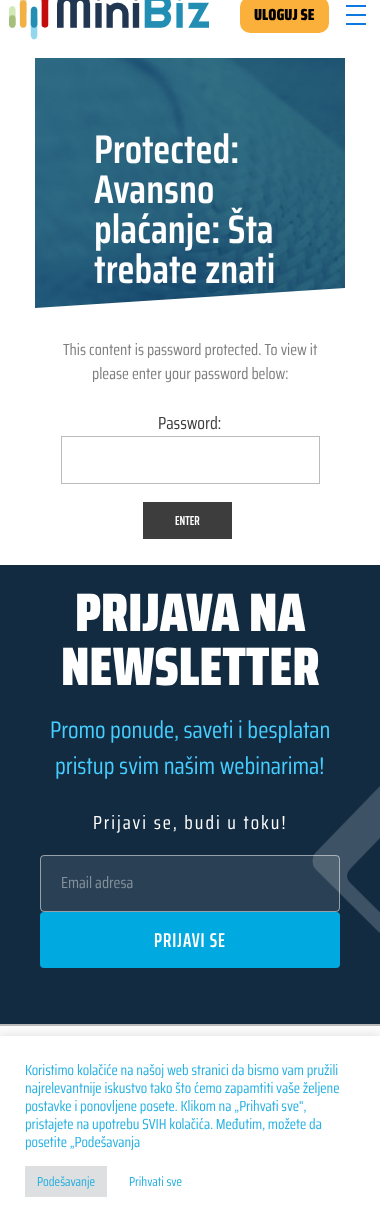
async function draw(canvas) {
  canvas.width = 380;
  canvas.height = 1227;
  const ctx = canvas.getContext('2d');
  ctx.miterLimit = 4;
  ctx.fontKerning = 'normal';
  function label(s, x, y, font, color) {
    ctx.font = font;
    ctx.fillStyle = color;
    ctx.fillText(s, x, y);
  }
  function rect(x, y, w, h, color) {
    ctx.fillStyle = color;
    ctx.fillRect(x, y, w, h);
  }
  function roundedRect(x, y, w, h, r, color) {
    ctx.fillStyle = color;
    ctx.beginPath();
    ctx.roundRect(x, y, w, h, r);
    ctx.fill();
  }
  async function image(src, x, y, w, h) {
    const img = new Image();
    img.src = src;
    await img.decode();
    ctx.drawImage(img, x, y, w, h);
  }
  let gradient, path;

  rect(0, 0, 380, 1227, '#fff');
  await image('assets/img1.png', 9, 0, 200, 40);
  roundedRect(240, -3, 89, 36, 10, '#fbb03b');
  label('ULOGUJ SE', 254, 20, '900 16px Saira Condensed', '#000');
  rect(346, 5, 20, 2, '#0e78e1');
  rect(346, 14, 20, 2, '#0e78e1');
  rect(346, 23, 20, 2, '#0e78e1');
  await image('assets/img2.png', 35, 58, 310, 250);
  label('Protected:', 94, 163, '600 40px Saira Condensed', '#fff');
  label('Avansno', 94, 203, '600 40px Saira Condensed', '#fff');
  label('plaćanje: Šta', 94, 243, '600 40px Saira Condensed', '#fff');
  label('trebate znati', 94, 283, '600 40px Saira Condensed', '#fff');
  ctx.save();
  ctx.beginPath();
  ctx.rect(35, 288, 310, 21);
  ctx.clip();
  path = new Path2D('M34 308V309H346V288Z');
  ctx.fill(path);
  ctx.restore();
  label('This content is password protected. To view it', 63, 355, '16px Saira Condensed', '#7d7d7d');
  label('please enter your password below:', 92, 379, '16px Saira Condensed', '#7d7d7d');
  label('Password:', 158, 429, '17.5px Saira Condensed', '#3d3d3d');
  ctx.strokeStyle = '#bbb';
  ctx.strokeRect(61.5, 436.5, 258, 47);
  rect(143, 502, 89, 37, '#3d3d3d');
  label('ENTER', 175, 525, '600 13px Saira ExtraCondensed', '#fff');
  rect(0, 565, 380, 459, '#122b41');
  await image('assets/img3.png', 312, 786, 68, 148);
  label('PRIJAVA NA', 75, 631, '900 54px Saira Condensed', '#fff');
  label('NEWSLETTER', 61, 685, '900 54px Saira Condensed', '#fff');
  label('Promo ponude, saveti i besplatan', 50, 738, '24px Saira Condensed', '#45ceff');
  label('pristup svim našim webinarima!', 55, 774, '24px Saira Condensed', '#45ceff');
  ctx.letterSpacing = '2px';
  label('Prijavi se, budi u toku!', 93, 829, '19px Saira Condensed', '#fff');
  roundedRect(40, 855, 300, 57, 4, '#ffffff1a');
  ctx.beginPath();
  ctx.roundRect(40.5, 855.5, 299, 56, 3.5);
  ctx.strokeStyle = '#ffffff80';
  ctx.stroke();
  ctx.letterSpacing = '0px';
  label('Email adresa', 61, 888, '16px Saira Condensed', '#84919c');
  roundedRect(40, 912, 300, 56, 4, '#00a9e0');
  ctx.letterSpacing = '1px';
  label('PRIJAVI SE', 154, 947, '600 20px Saira ExtraCondensed', '#fff');
  gradient = ctx.createLinearGradient(190, 1026, 190, 1087);
  gradient.addColorStop(0, '#fcfcfc');
  gradient.addColorStop(1, '#f4f4f4');
  ctx.fillStyle = gradient;
  ctx.fillRect(0, 1026, 380, 10);
  rect(0, 1024, 380, 2, '#bababa');
  ctx.fillStyle = '#acabab4d';
  ctx.filter = 'blur(5px)';
  ctx.beginPath();
  ctx.rect(0, 1035, 380, 191);
  ctx.fill();
  ctx.filter = 'none';
  rect(0, 1036, 380, 191, '#fff');
  ctx.letterSpacing = '0px';
  label('Koristimo kolačiće na našoj web stranici da bismo vam pružili', 25, 1075, '14.7px Saira Condensed', '#24b0e2');
  label('najrelevantnije iskustvo tako što ćemo zapamtiti vaše željene', 25, 1093, '14.7px Saira Condensed', '#24b0e2');
  label('postavke i ponovljene posete. Klikom na „Prihvati sve“,', 25, 1111, '14.7px Saira Condensed', '#24b0e2');
  label('pristajete na upotrebu SVIH kolačića. Međutim, možete da', 25, 1129, '14.7px Saira Condensed', '#24b0e2');
  label('posetite „Podešavanja', 25, 1147, '14.7px Saira Condensed', '#24b0e2');
  rect(25, 1166, 82, 31, '#dedfe0');
  label('Podešavanje', 37, 1186, '13px Saira Condensed', '#24b0e2');
  label('Prihvati sve', 129, 1186, '13px Saira Condensed', '#24b0e2');
}

draw(document.querySelector('canvas'));
